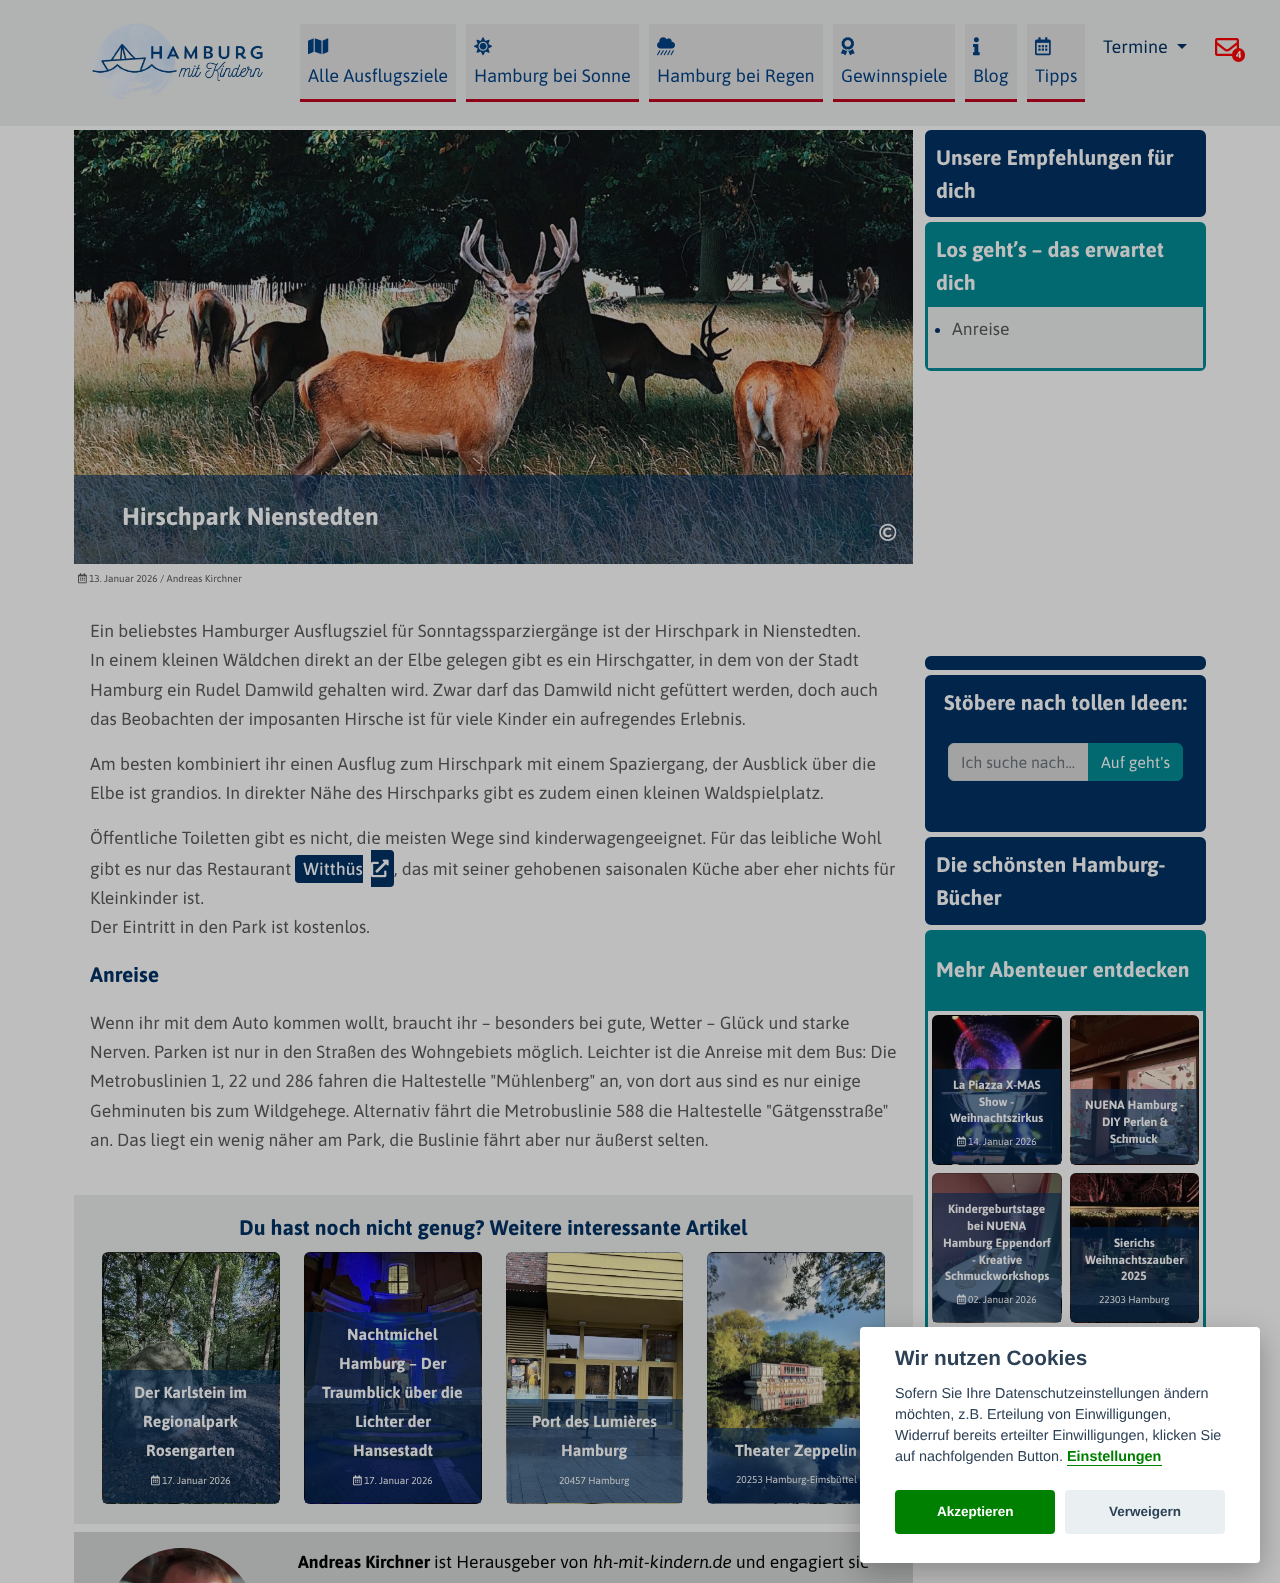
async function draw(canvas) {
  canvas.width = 1280;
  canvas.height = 1583;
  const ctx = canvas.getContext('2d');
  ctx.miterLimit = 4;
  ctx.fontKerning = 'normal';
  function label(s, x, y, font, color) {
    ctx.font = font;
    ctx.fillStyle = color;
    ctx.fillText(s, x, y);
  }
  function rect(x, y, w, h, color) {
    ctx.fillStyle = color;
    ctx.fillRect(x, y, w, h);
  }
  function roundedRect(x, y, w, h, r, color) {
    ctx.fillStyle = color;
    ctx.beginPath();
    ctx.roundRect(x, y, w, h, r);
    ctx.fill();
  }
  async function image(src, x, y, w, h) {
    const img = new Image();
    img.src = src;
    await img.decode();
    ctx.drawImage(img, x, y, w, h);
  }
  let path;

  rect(0, 0, 1280, 1583, '#bebebf');
  rect(0, 0, 1280, 126, '#b1b2b2');
  await image('assets/img1.png', 92, 23, 171, 76);
  label('Termine', 1103, 53, '18px Asap', '#01254b');
  path = new Path2D('M1177 44H1187L1182 49Z');
  ctx.fill(path);
  await image('assets/img2.png', 1215, 38, 24, 18);
  roundedRect(1232, 48, 13, 14, 6.5, '#be0202');
  label('4', 1236, 58, 'bold 10px Asap', '#bebebf');
  rect(300, 24, 156, 75, '#abaaab');
  rect(300, 99, 156, 3, '#900217');
  await image('assets/img3.png', 308, 38, 21, 17);
  label('Alle Ausflugsziele', 308, 82, '18px Asap', '#023264');
  rect(466, 24, 173, 75, '#abaaab');
  rect(466, 99, 173, 3, '#900217');
  await image('assets/img4.png', 474, 37, 18, 19);
  label('Hamburg bei Sonne', 474, 82, '18px Asap', '#023264');
  rect(649, 24, 174, 75, '#abaaab');
  rect(649, 99, 174, 3, '#900217');
  await image('assets/img5.png', 657, 37, 18, 19);
  label('Hamburg bei Regen', 657, 82, '18px Asap', '#023264');
  rect(833, 24, 122, 75, '#abaaab');
  rect(833, 99, 122, 3, '#900217');
  await image('assets/img6.png', 841, 37, 14, 19);
  label('Gewinnspiele', 841, 82, '18px Asap', '#023264');
  rect(965, 24, 52, 75, '#abaaab');
  rect(965, 99, 52, 3, '#900217');
  await image('assets/img7.png', 973, 37, 7, 19);
  label('Blog', 973, 82, '18px Asap', '#023264');
  rect(1027, 24, 58, 75, '#abaaab');
  rect(1027, 99, 58, 3, '#900217');
  await image('assets/img8.png', 1035, 37, 16, 19);
  label('Tipps', 1035, 82, '18px Asap', '#023264');
  await image('assets/img9.png', 74, 130, 839, 434);
  rect(74, 475, 839, 89, '#01254b99');
  label('Hirschpark Nienstedten', 122, 525, 'bold 24.6px Asap', '#bebebf');
  await image('assets/img10.png', 879, 523, 18, 18);
  await image('assets/img11.png', 78, 573, 9, 11);
  label('13. Januar 2026 / Andreas Kirchner', 89, 582, '10px Asap', '#444545');
  label('Ein beliebstes Hamburger Ausflugsziel für Sonntagssparziergänge ist der Hirschpark in Nienstedten.', 90, 637, '17.6px Asap', '#444545');
  label('In einem kleinen Wäldchen direkt an der Elbe gelegen gibt es ein Hirschgatter, in dem von der Stadt', 90, 666, '17.6px Asap', '#444545');
  label('Hamburg ein Rudel Damwild gehalten wird. Zwar darf das Damwild nicht gefüttert werden, doch auch', 90, 696, '17.6px Asap', '#444545');
  label('das Beobachten der imposanten Hirsche ist für viele Kinder ein aufregendes Erlebnis.', 90, 725, '17.6px Asap', '#444545');
  label('Am besten kombiniert ihr einen Ausflug zum Hirschpark mit einem Spaziergang, der Ausblick über die', 90, 770, '17.6px Asap', '#444545');
  label('Elbe ist grandios. In direkter Nähe des Hirschparks gibt es zudem einen kleinen Waldspielplatz.', 90, 799, '17.6px Asap', '#444545');
  label('Öffentliche Toiletten gibt es nicht, die meisten Wege sind kinderwagengeeignet. Für das leibliche Wohl', 90, 844, '17.6px Asap', '#444545');
  label('gibt es nur das Restaurant', 90, 875, '17.6px Asap', '#444545');
  ctx.fillStyle = '#01254b';
  ctx.beginPath();
  ctx.roundRect(295, 855, 68, 28, [4, 0, 0, 4]);
  ctx.fill();
  ctx.beginPath();
  ctx.roundRect(371, 850, 23, 37, [0, 4, 4, 0]);
  ctx.fill();
  label('Witthüs', 303, 875, '500 17.6px Asap', '#bebebf');
  await image('assets/img12.png', 371, 859, 18, 19);
  label(', das mit seiner gehobenen saisonalen Küche aber eher nichts für', 394, 875, '17.6px Asap', '#444545');
  label('Kleinkinder ist.', 90, 904, '17.6px Asap', '#444545');
  label('Der Eintritt in den Park ist kostenlos.', 90, 933, '17.6px Asap', '#444545');
  label('Anreise', 90, 982, 'bold 21.1px Asap', '#01254b');
  label('Wenn ihr mit dem Auto kommen wollt, braucht ihr – besonders bei gute, Wetter – Glück und starke', 90, 1029, '17.6px Asap', '#444545');
  label('Nerven. Parken ist nur in den Straßen des Wohngebiets möglich. Leichter ist die Anreise mit dem Bus: Die', 90, 1058, '17.6px Asap', '#444545');
  label('Metrobuslinien 1, 22 und 286 fahren die Haltestelle "Mühlenberg" an, von dort aus sind es nur einige', 90, 1087, '17.6px Asap', '#444545');
  label('Gehminuten bis zum Wildgehege. Alternativ fährt die Metrobuslinie 588 die Haltestelle "Gätgensstraße"', 90, 1117, '17.6px Asap', '#444545');
  label('an. Das liegt ein wenig näher am Park, die Buslinie fährt aber nur äußerst selten.', 90, 1146, '17.6px Asap', '#444545');
  rect(74, 1195, 839, 329, '#b0b1b1');
  label('Du hast noch nicht genug? Weitere interessante Artikel', 239, 1235, 'bold 21.1px Asap', '#01254b');
  await image('assets/img13.png', 102, 1252, 178, 252);
  ctx.beginPath();
  ctx.roundRect(102.5, 1252.5, 177, 251, 5.5);
  ctx.strokeStyle = '#0102022e';
  ctx.stroke();
  rect(103, 1370, 176, 133, '#01254b99');
  label('Der Karlstein im', 134, 1398, 'bold 16px Asap', '#bebebf');
  label('Regionalpark', 143, 1427, 'bold 16px Asap', '#bebebf');
  label('Rosengarten', 146, 1456, 'bold 16px Asap', '#bebebf');
  await image('assets/img14.png', 151, 1475, 9, 11);
  label('17. Januar 2026', 162, 1484, '10px Asap', '#bebebf');
  await image('assets/img15.png', 304, 1252, 178, 252);
  ctx.beginPath();
  ctx.roundRect(304.5, 1252.5, 177, 251, 5.5);
  ctx.stroke();
  rect(305, 1312, 176, 191, '#01254b99');
  label('Nachtmichel', 347, 1340, 'bold 16px Asap', '#bebebf');
  label('Hamburg – Der', 339, 1369, 'bold 16px Asap', '#bebebf');
  label('Traumblick über die', 322, 1398, 'bold 16px Asap', '#bebebf');
  label('Lichter der', 355, 1427, 'bold 16px Asap', '#bebebf');
  label('Hansestadt', 353, 1456, 'bold 16px Asap', '#bebebf');
  await image('assets/img16.png', 353, 1475, 9, 11);
  label('17. Januar 2026', 364, 1484, '10px Asap', '#bebebf');
  await image('assets/img17.png', 506, 1252, 177, 252);
  ctx.beginPath();
  ctx.roundRect(506.5, 1252.5, 176, 251, 5.5);
  ctx.stroke();
  rect(507, 1399, 175, 104, '#01254b99');
  label('Port des Lumières', 532, 1427, 'bold 16px Asap', '#bebebf');
  label('Hamburg', 561, 1456, 'bold 16px Asap', '#bebebf');
  label('20457 Hamburg', 559, 1484, '10px Asap', '#bebebf');
  await image('assets/img18.png', 707, 1252, 178, 252);
  ctx.beginPath();
  ctx.roundRect(707.5, 1252.5, 177, 251, 5.5);
  ctx.stroke();
  rect(708, 1428, 152, 75, '#01254b99');
  label('Theater Zeppelin', 735, 1456, 'bold 16px Asap', '#bebebf');
  label('20253 Hamburg-Eimsbüttel', 736, 1483, '10px Asap', '#bebebf');
  rect(74, 1532, 839, 51, '#a0a1a1');
  await image('assets/img19.png', 118, 1548, 128, 35);
  label('Andreas Kirchner', 298, 1568, 'bold 17.6px Asap', '#010202');
  label('ist Herausgeber von', 434, 1568, '17.6px Asap', '#010202');
  label('hh-mit-kindern.de', 593, 1568, 'italic 17.6px Asap', '#010202');
  label('und engagiert sic', 736, 1568, '17.6px Asap', '#010202');
  ctx.beginPath();
  ctx.roundRect(926.5, 131.5, 278, 84, 4.5);
  ctx.strokeStyle = '#01254b';
  ctx.lineWidth = 3;
  ctx.stroke();
  rect(928, 133, 275, 81, '#01254b');
  label('Unsere Empfehlungen für', 936, 165, 'bold 21.1px Asap', '#bebebf');
  label('dich', 936, 198, 'bold 21.1px Asap', '#bebebf');
  ctx.beginPath();
  ctx.roundRect(926.5, 223.5, 278, 146, 4.5);
  ctx.strokeStyle = '#01696f';
  ctx.stroke();
  rect(928, 225, 275, 82, '#01696f');
  label('Los geht’s – das erwartet', 936, 257, 'bold 21.1px Asap', '#bebebf');
  label('dich', 936, 290, 'bold 21.1px Asap', '#bebebf');
  rect(928, 307, 275, 61, '#b1b2b2');
  ctx.fillStyle = '#01254b';
  ctx.beginPath();
  ctx.arc(937.5, 330.5, 2.5, 0, 2 * Math.PI);
  ctx.fill();
  label('Anreise', 952, 335, '17.6px Asap', '#444545');
  ctx.fillStyle = '#01254b';
  ctx.beginPath();
  ctx.roundRect(926.5, 657.5, 278, 11, 4.5);
  ctx.fill();
  ctx.strokeStyle = '#01254b';
  ctx.stroke();
  ctx.beginPath();
  ctx.roundRect(926.5, 676.5, 278, 154, 4.5);
  ctx.stroke();
  rect(928, 678, 275, 151, '#01254b');
  label('Stöbere nach tollen Ideen:', 944, 710, 'bold 21.1px Asap', '#bebebf');
  ctx.fillStyle = '#a3a3a3';
  ctx.beginPath();
  ctx.roundRect(948.5, 743.5, 140, 37, [5.5, 0, 0, 5.5]);
  ctx.fill();
  ctx.strokeStyle = '#999ea3';
  ctx.lineWidth = 1;
  ctx.stroke();
  label('Ich suche nach...', 961, 768, '16px Asap', '#51585f');
  ctx.fillStyle = '#01696f';
  ctx.beginPath();
  ctx.roundRect(1088.5, 743.5, 94, 37, [0, 5.5, 5.5, 0]);
  ctx.fill();
  ctx.strokeStyle = '#01696f';
  ctx.stroke();
  label('Auf geht\'s', 1101, 768, '16px Asap', '#bebebf');
  ctx.beginPath();
  ctx.roundRect(926.5, 838.5, 278, 85, 4.5);
  ctx.strokeStyle = '#01254b';
  ctx.lineWidth = 3;
  ctx.stroke();
  rect(928, 840, 275, 82, '#01254b');
  label('Die schönsten Hamburg-', 936, 872, 'bold 21.1px Asap', '#bebebf');
  label('Bücher', 936, 905, 'bold 21.1px Asap', '#bebebf');
  ctx.beginPath();
  ctx.roundRect(926.5, 931.5, 278, 555, 4.5);
  ctx.strokeStyle = '#01696f';
  ctx.stroke();
  rect(928, 933, 275, 78, '#01696f');
  label('Mehr Abenteuer entdecken', 936, 977, 'bold 21.1px Asap', '#bebebf');
  await image('assets/img20.png', 932, 1015, 130, 150);
  ctx.beginPath();
  ctx.roundRect(932.5, 1015.5, 129, 149, 5.5);
  ctx.strokeStyle = '#0102022e';
  ctx.lineWidth = 1;
  ctx.stroke();
  rect(933, 1069, 128, 95, '#01254b99');
  label('La Piazza X-MAS', 953, 1089, 'bold 12px Asap', '#bebebf');
  label('Show -', 979, 1106, 'bold 12px Asap', '#bebebf');
  label('Weihnachtszirkus', 950, 1122, 'bold 12px Asap', '#bebebf');
  await image('assets/img21.png', 957, 1136, 9, 11);
  label('14. Januar 2026', 968, 1145, '10px Asap', '#bebebf');
  await image('assets/img22.png', 1070, 1015, 129, 150);
  ctx.beginPath();
  ctx.roundRect(1070.5, 1015.5, 128, 149, 5.5);
  ctx.stroke();
  rect(1071, 1089, 127, 75, '#01254b99');
  label('NUENA Hamburg -', 1085, 1109, 'bold 12px Asap', '#bebebf');
  label('DIY Perlen &', 1102, 1126, 'bold 12px Asap', '#bebebf');
  label('Schmuck', 1110, 1143, 'bold 12px Asap', '#bebebf');
  await image('assets/img23.png', 932, 1173, 130, 150);
  ctx.beginPath();
  ctx.roundRect(932.5, 1173.5, 129, 149, 5.5);
  ctx.stroke();
  rect(933, 1193, 128, 129, '#01254b99');
  label('Kindergeburtstage', 948, 1213, 'bold 12px Asap', '#bebebf');
  label('bei NUENA', 967, 1230, 'bold 12px Asap', '#bebebf');
  label('Hamburg Eppendorf', 943, 1247, 'bold 12px Asap', '#bebebf');
  label('- Kreative', 972, 1264, 'bold 12px Asap', '#bebebf');
  label('Schmuckworkshops', 945, 1280, 'bold 12px Asap', '#bebebf');
  await image('assets/img24.png', 957, 1294, 9, 11);
  label('02. Januar 2026', 968, 1303, '10px Asap', '#bebebf');
  await image('assets/img25.png', 1070, 1173, 129, 150);
  ctx.beginPath();
  ctx.roundRect(1070.5, 1173.5, 128, 149, 5.5);
  ctx.stroke();
  rect(1071, 1227, 127, 95, '#01254b99');
  label('Sierichs', 1114, 1247, 'bold 12px Asap', '#bebebf');
  label('Weihnachtszauber', 1085, 1264, 'bold 12px Asap', '#bebebf');
  label('2025', 1121, 1280, 'bold 12px Asap', '#bebebf');
  label('22303 Hamburg', 1099, 1303, '10px Asap', '#bebebf');
  ctx.fillStyle = '#02020347';
  ctx.filter = 'blur(15px)';
  ctx.beginPath();
  ctx.roundRect(860, 1337, 400, 236, 4);
  ctx.fill();
  ctx.filter = 'none';
  roundedRect(860, 1327, 400, 236, 4, '#fff');
  label('Wir nutzen Cookies', 895, 1365, 'bold 20.75px Liberation Sans', '#2d4156');
  label('Sofern Sie Ihre Datenschutzeinstellungen ändern', 895, 1398, '14.4px Liberation Sans', '#2d4156');
  label('möchten, z.B. Erteilung von Einwilligungen,', 895, 1419, '14.4px Liberation Sans', '#2d4156');
  label('Widerruf bereits erteilter Einwilligungen, klicken Sie', 895, 1440, '14.4px Liberation Sans', '#2d4156');
  label('auf nachfolgenden Button.', 895, 1461, '14.4px Liberation Sans', '#2d4156');
  label('Einstellungen', 1067, 1461, 'bold 14.4px Liberation Sans', '#008000');
  rect(1067, 1465, 95, 1, '#008000');
  roundedRect(895, 1490, 160, 44, 4, '#008000');
  label('Akzeptieren', 937, 1516, 'bold 13.5px Liberation Sans', '#fff');
  roundedRect(1065, 1490, 160, 44, 4, '#eaeff2');
  label('Verweigern', 1109, 1516, 'bold 13.5px Liberation Sans', '#2d4156');
}

draw(document.querySelector('canvas'));
